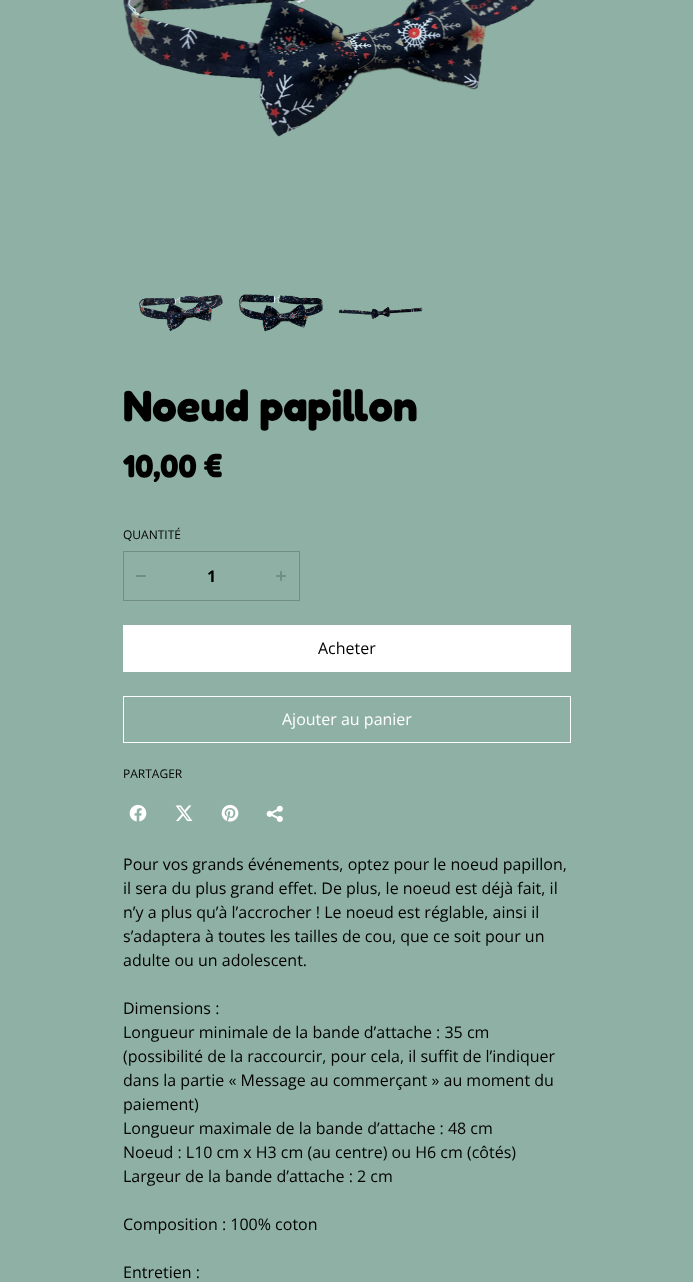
async function draw(canvas) {
  canvas.width = 693;
  canvas.height = 1282;
  const ctx = canvas.getContext('2d');
  ctx.miterLimit = 4;
  ctx.fontKerning = 'normal';
  function label(s, x, y, font, color) {
    ctx.font = font;
    ctx.fillStyle = color;
    ctx.fillText(s, x, y);
  }
  function rect(x, y, w, h, color) {
    ctx.fillStyle = color;
    ctx.fillRect(x, y, w, h);
  }
  async function image(src, x, y, w, h) {
    const img = new Image();
    img.src = src;
    await img.decode();
    ctx.drawImage(img, x, y, w, h);
  }
  let path;

  rect(0, 0, 693, 1282, '#8fb1a5');
  await image('assets/img1.png', 123, 0, 412, 137);
  await image('assets/img2.png', 139, 294, 84, 38);
  await image('assets/img3.png', 239, 294, 84, 38);
  await image('assets/img4.png', 339, 307, 84, 12);
  label('Noeud papillon', 123, 421, 'bold 43.75px Fredoka', '#000');
  label('10,00 €', 123, 477, 'bold 32px Fredoka', '#000');
  label('QUANTITÉ', 123, 539, '12px Open Sans', '#000');
  ctx.fillStyle = '#728e84';
  path = new Path2D('M123 551H159V552H124ZM159 601H123L124 600H159Z');
  ctx.fill(path);
  ctx.fillStyle = '#00000033';
  path = new Path2D('M123 601V551L124 552V600Z');
  ctx.fill(path);
  await image('assets/img5.png', 136, 575, 10, 2);
  rect(159, 551, 105, 1, '#728e84');
  rect(159, 600, 105, 1, '#728e84');
  label('1', 207, 582, 'bold 16px Open Sans', '#000');
  ctx.fillStyle = '#728e84';
  path = new Path2D('M264 551H300L299 552H264Z');
  ctx.fill(path);
  ctx.fillStyle = '#00000033';
  path = new Path2D('M300 551V601L299 600V552Z');
  ctx.fill(path);
  path = new Path2D('M300 601H264V600H299Z');
  ctx.fill(path);
  await image('assets/img6.png', 276, 571, 10, 10);
  rect(123, 625, 448, 47, '#fff');
  label('Acheter', 318, 654, '16px Open Sans', '#000');
  ctx.strokeStyle = '#fff';
  ctx.strokeRect(123.5, 696.5, 447, 46);
  label('Ajouter au panier', 282, 725, '16px Open Sans', '#fff');
  label('PARTAGER', 123, 778, '12px Open Sans', '#000');
  await image('assets/img7.png', 129, 804, 18, 18);
  await image('assets/img8.png', 175, 805, 18, 17);
  await image('assets/img9.png', 221, 804, 18, 18);
  await image('assets/img10.png', 266, 805, 17, 17);
  label('Pour vos grands événements, optez pour le noeud papillon,', 123, 870, '16px Open Sans', '#000');
  label('il sera du plus grand effet. De plus, le noeud est déjà fait, il', 123, 894, '16px Open Sans', '#000');
  label('n’y a plus qu’à l’accrocher ! Le noeud est réglable, ainsi il', 123, 918, '16px Open Sans', '#000');
  label('s’adaptera à toutes les tailles de cou, que ce soit pour un', 123, 942, '16px Open Sans', '#000');
  label('adulte ou un adolescent.', 123, 966, '16px Open Sans', '#000');
  label('Dimensions :', 123, 1014, '16px Open Sans', '#000');
  label('Longueur minimale de la bande d’attache : 35 cm', 123, 1038, '16px Open Sans', '#000');
  label('(possibilité de la raccourcir, pour cela, il suffit de l’indiquer', 123, 1062, '16px Open Sans', '#000');
  label('dans la partie « Message au commerçant » au moment du', 123, 1086, '16px Open Sans', '#000');
  label('paiement)', 123, 1110, '16px Open Sans', '#000');
  label('Longueur maximale de la bande d’attache : 48 cm', 123, 1134, '16px Open Sans', '#000');
  label('Noeud : L10 cm x H3 cm (au centre) ou H6 cm (côtés)', 123, 1158, '16px Open Sans', '#000');
  label('Largeur de la bande d’attache : 2 cm', 123, 1182, '16px Open Sans', '#000');
  label('Composition : 100% coton', 123, 1230, '16px Open Sans', '#000');
  label('Entretien :', 123, 1278, '16px Open Sans', '#000');
}

draw(document.querySelector('canvas'));
